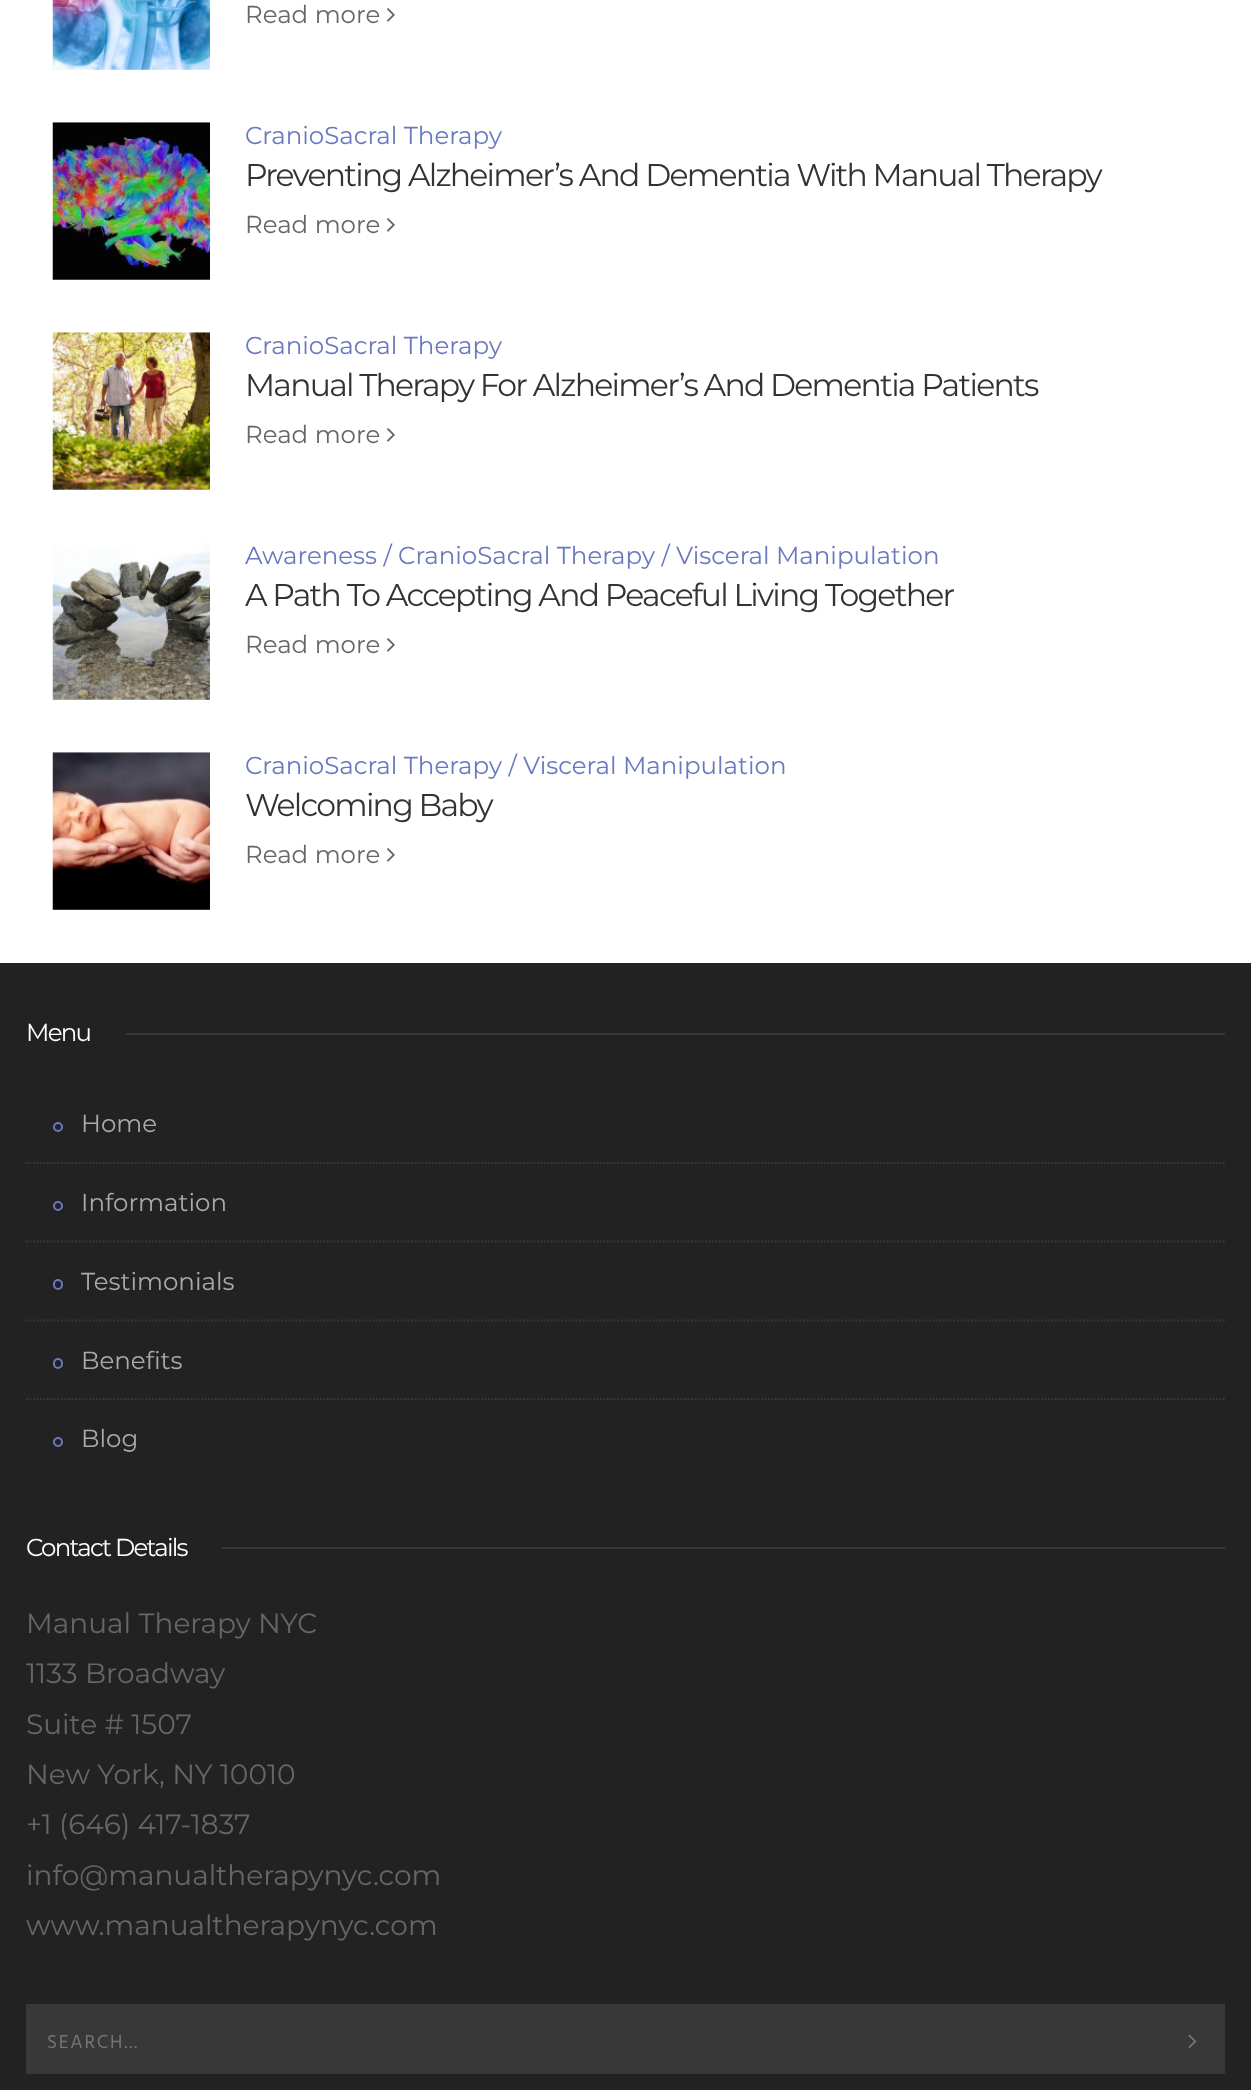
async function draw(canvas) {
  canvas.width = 1251;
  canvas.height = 2090;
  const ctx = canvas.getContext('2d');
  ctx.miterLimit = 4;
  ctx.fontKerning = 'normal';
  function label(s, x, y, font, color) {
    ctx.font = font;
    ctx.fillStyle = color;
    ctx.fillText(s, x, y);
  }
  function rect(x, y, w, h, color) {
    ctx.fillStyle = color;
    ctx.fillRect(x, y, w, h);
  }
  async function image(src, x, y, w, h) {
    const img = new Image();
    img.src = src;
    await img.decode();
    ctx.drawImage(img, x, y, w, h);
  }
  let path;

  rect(0, 0, 1251, 2090, '#fff');
  await image('assets/img1.png', 52, 0, 158, 70);
  label('Read more', 245, 23, '24.5px Montserrat', '#666');
  await image('assets/img2.png', 387, 8, 8, 14);
  await image('assets/img3.png', 52, 122, 158, 158);
  label('CranioSacral Therapy', 245, 144, '24.5px Montserrat', '#6978bf');
  ctx.letterSpacing = '-1.75px';
  label('Preventing Alzheimer’s And Dementia With Manual Therapy', 245, 186, '31.5px Montserrat', '#333');
  ctx.letterSpacing = '0px';
  label('Read more', 245, 233, '24.5px Montserrat', '#666');
  await image('assets/img4.png', 387, 218, 8, 14);
  await image('assets/img5.png', 52, 332, 158, 158);
  label('CranioSacral Therapy', 245, 354, '24.5px Montserrat', '#6978bf');
  ctx.letterSpacing = '-1.75px';
  label('Manual Therapy For Alzheimer’s And Dementia Patients', 245, 396, '31.5px Montserrat', '#333');
  ctx.letterSpacing = '0px';
  label('Read more', 245, 443, '24.5px Montserrat', '#666');
  await image('assets/img4.png', 387, 428, 8, 14);
  await image('assets/img6.png', 52, 543, 158, 157);
  label('Awareness / CranioSacral Therapy / Visceral Manipulation', 245, 564, '24.5px Montserrat', '#6978bf');
  ctx.letterSpacing = '-1.75px';
  label('A Path To Accepting And Peaceful Living Together', 245, 606, '31.5px Montserrat', '#333');
  ctx.letterSpacing = '0px';
  label('Read more', 245, 653, '24.5px Montserrat', '#666');
  await image('assets/img4.png', 387, 638, 8, 14);
  rect(53, 909, 157, 1, '#6978bf');
  await image('assets/img7.png', 52, 752, 158, 158);
  label('CranioSacral Therapy / Visceral Manipulation', 245, 774, '24.5px Montserrat', '#6978bf');
  ctx.letterSpacing = '-1.75px';
  label('Welcoming Baby', 245, 816, '31.5px Montserrat', '#333');
  ctx.letterSpacing = '0px';
  label('Read more', 245, 863, '24.5px Montserrat', '#666');
  await image('assets/img4.png', 387, 848, 8, 14);
  rect(0, 963, 1251, 1127, '#222');
  ctx.letterSpacing = '-1.75px';
  label('Menu', 26, 1041, '24.5px Montserrat', '#fff');
  rect(126, 1033, 1099, 2, '#383838');
  path = new Path2D('M26 1163H1225');
  ctx.strokeStyle = '#383838';
  ctx.lineWidth = 1.8;
  ctx.setLineDash([1.75, 1.75]);
  ctx.stroke(path);
  ctx.beginPath();
  ctx.arc(58, 1127, 4, 0, 2 * Math.PI);
  ctx.strokeStyle = '#6978bf';
  ctx.lineWidth = 2;
  ctx.setLineDash([]);
  ctx.stroke();
  ctx.letterSpacing = '0px';
  label('Home', 81, 1132, '24.5px Montserrat', '#aaa');
  path = new Path2D('M26 1241.5H1225');
  ctx.strokeStyle = '#383838';
  ctx.lineWidth = 1.8;
  ctx.setLineDash([1.75, 1.75]);
  ctx.stroke(path);
  ctx.beginPath();
  ctx.arc(58, 1206, 4, 0, 2 * Math.PI);
  ctx.strokeStyle = '#6978bf';
  ctx.lineWidth = 2;
  ctx.setLineDash([]);
  ctx.stroke();
  label('Information', 81, 1211, '24.5px Montserrat', '#aaa');
  path = new Path2D('M26 1320.5H1225');
  ctx.strokeStyle = '#383838';
  ctx.lineWidth = 1.8;
  ctx.setLineDash([1.75, 1.75]);
  ctx.stroke(path);
  ctx.beginPath();
  ctx.roundRect(54, 1280, 8, 9, 4);
  ctx.strokeStyle = '#6978bf';
  ctx.lineWidth = 2;
  ctx.setLineDash([]);
  ctx.stroke();
  label('Testimonials', 81, 1290, '24.5px Montserrat', '#aaa');
  path = new Path2D('M26 1399H1225');
  ctx.strokeStyle = '#383838';
  ctx.lineWidth = 1.8;
  ctx.setLineDash([1.75, 1.75]);
  ctx.stroke(path);
  ctx.beginPath();
  ctx.roundRect(54, 1359, 8, 9, 4);
  ctx.strokeStyle = '#6978bf';
  ctx.lineWidth = 2;
  ctx.setLineDash([]);
  ctx.stroke();
  label('Benefits', 81, 1369, '24.5px Montserrat', '#aaa');
  ctx.beginPath();
  ctx.arc(58, 1442, 4, 0, 2 * Math.PI);
  ctx.stroke();
  label('Blog', 81, 1447, '24.5px Montserrat', '#aaa');
  ctx.letterSpacing = '-1.75px';
  label('Contact Details', 26, 1556, '24.5px Montserrat', '#fff');
  rect(222, 1547, 1003, 2, '#383838');
  ctx.letterSpacing = '0px';
  label('Manual Therapy NYC', 26, 1633, '28px Montserrat', '#666');
  label('1133 Broadway', 26, 1683, '28px Montserrat', '#666');
  label('Suite # 1507', 26, 1734, '28px Montserrat', '#666');
  label('New York, NY 10010', 26, 1784, '28px Montserrat', '#666');
  label('+1 (646) 417-1837', 26, 1834, '28px Montserrat', '#666');
  label('info@manualtherapynyc.com', 26, 1885, '28px Montserrat', '#666');
  label('www.manualtherapynyc.com', 26, 1935, '28px Montserrat', '#666');
  rect(26, 2004, 1199, 70, '#383838');
  await image('assets/img8.png', 1188, 2034, 9, 15);
  ctx.letterSpacing = '1.75px';
  label('SEARCH...', 47, 2048, '19.25px Hind', '#747474');
}

draw(document.querySelector('canvas'));
